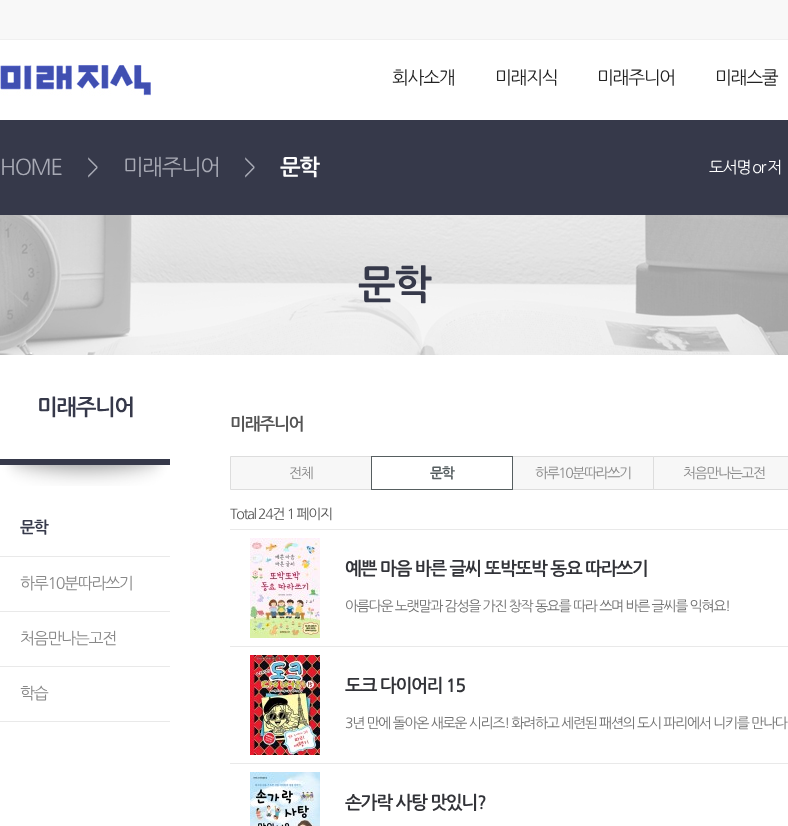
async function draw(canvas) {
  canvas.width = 788;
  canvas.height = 826;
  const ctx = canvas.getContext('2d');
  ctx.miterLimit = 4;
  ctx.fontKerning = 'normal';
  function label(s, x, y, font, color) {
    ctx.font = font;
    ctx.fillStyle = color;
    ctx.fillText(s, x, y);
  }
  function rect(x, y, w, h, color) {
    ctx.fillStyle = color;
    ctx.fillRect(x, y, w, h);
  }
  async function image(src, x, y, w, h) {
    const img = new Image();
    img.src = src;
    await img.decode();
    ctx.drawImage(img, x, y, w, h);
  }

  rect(0, 0, 788, 826, '#fff');
  rect(0, 0, 788, 39, '#f8f8f8');
  rect(0, 39, 788, 1, '#f0f0f0');
  await image('assets/img1.png', 0, 64, 151, 32);
  ctx.letterSpacing = '-1.35px';
  label('회사소개', 392, 84, '18px NanumGothic', '#222');
  label('미래지식', 495, 84, '18px NanumGothic', '#222');
  label('미래주니어', 597, 84, '18px NanumGothic', '#222');
  label('미래스쿨', 715, 84, '18px NanumGothic', '#222');
  rect(0, 120, 788, 95, '#36394a');
  label('HOME', 0, 175, '22px NanumGothic', '#a8aab5');
  label('>', 87, 175, '22px NanumGothic', '#a8aab5');
  label('미래주니어', 123, 175, '22px NanumGothic', '#a8aab5');
  label('>', 244, 175, '22px NanumGothic', '#a8aab5');
  label('문학', 280, 175, 'bold 22px NanumGothic', '#fff');
  ctx.wordSpacing = '-1px';
  label('도서명 or 저', 709, 173, '16px NanumGothic', '#fff');
  await image('assets/img2.png', 0, 215, 788, 140);
  ctx.wordSpacing = '0px';
  label('문학', 358, 299, 'bold 40px NanumGothic', '#36394a');
  label('미래주니어', 37, 415, 'bold 22px NanumGothic', '#36394a');
  await image('assets/img3.png', 0, 459, 170, 27);
  rect(0, 556, 170, 1, '#e9e9e9');
  label('문학', 20, 533, 'bold 16px NanumGothic', '#36394a');
  rect(0, 611, 170, 1, '#e9e9e9');
  label('하루10분따라쓰기', 20, 589, '16px NanumGothic', '#888');
  rect(0, 666, 170, 1, '#e9e9e9');
  label('처음만나는고전', 20, 644, '16px NanumGothic', '#888');
  rect(0, 721, 170, 1, '#e9e9e9');
  label('학습', 20, 699, '16px NanumGothic', '#888');
  label('미래주니어', 230, 430, 'bold 17px NanumGothic', '#545454');
  ctx.fillStyle = '#f7f7f7';
  ctx.beginPath();
  ctx.rect(230.5, 456.5, 141, 33);
  ctx.fill();
  ctx.strokeStyle = '#ddd';
  ctx.stroke();
  ctx.letterSpacing = '-1.5px';
  label('전체', 289, 478, '14px NanumGothic', '#888');
  ctx.fillStyle = '#f7f7f7';
  ctx.beginPath();
  ctx.rect(512.5, 456.5, 141, 33);
  ctx.fill();
  ctx.stroke();
  ctx.strokeStyle = '#565e60';
  ctx.strokeRect(371.5, 456.5, 141, 33);
  label('문학', 430, 478, 'bold 14px NanumGothic', '#565e60');
  label('하루10분따라쓰기', 535, 478, '14px NanumGothic', '#888');
  ctx.fillStyle = '#f7f7f7';
  ctx.beginPath();
  ctx.rect(653.5, 456.5, 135, 33);
  ctx.fill();
  ctx.strokeStyle = '#ddd';
  ctx.stroke();
  label('처음만나는고전', 683, 478, '14px NanumGothic', '#888');
  ctx.letterSpacing = '-1.35px';
  label('Total 24건 1 페이지', 230, 519, '14px NanumGothic', '#545454');
  await image('assets/img4.png', 250, 538, 70, 100);
  rect(230, 529, 558, 1, '#e9e9e9');
  label('예쁜 마음 바른 글씨 또박또박 동요 따라쓰기', 345, 575, 'bold 18px NanumGothic', '#323338');
  label('아름다운 노랫말과 감성을 가진 창작 동요를 따라 쓰며 바른 글씨를 익혀요!', 345, 611, '14px NanumGothic', '#717171');
  await image('assets/img5.png', 250, 655, 70, 100);
  rect(230, 646, 558, 1, '#e9e9e9');
  label('도크 다이어리 15', 345, 692, 'bold 18px NanumGothic', '#323338');
  label('3년 만에 돌아온 새로운 시리즈! 화려하고 세련된 패션의 도시 파리에서 니키를 만나다', 345, 728, '14px NanumGothic', '#717171');
  await image('assets/img6.png', 250, 772, 70, 54);
  rect(230, 763, 558, 1, '#e9e9e9');
  label('손가락 사탕 맛있니?', 345, 809, 'bold 18px NanumGothic', '#323338');
}

draw(document.querySelector('canvas'));
